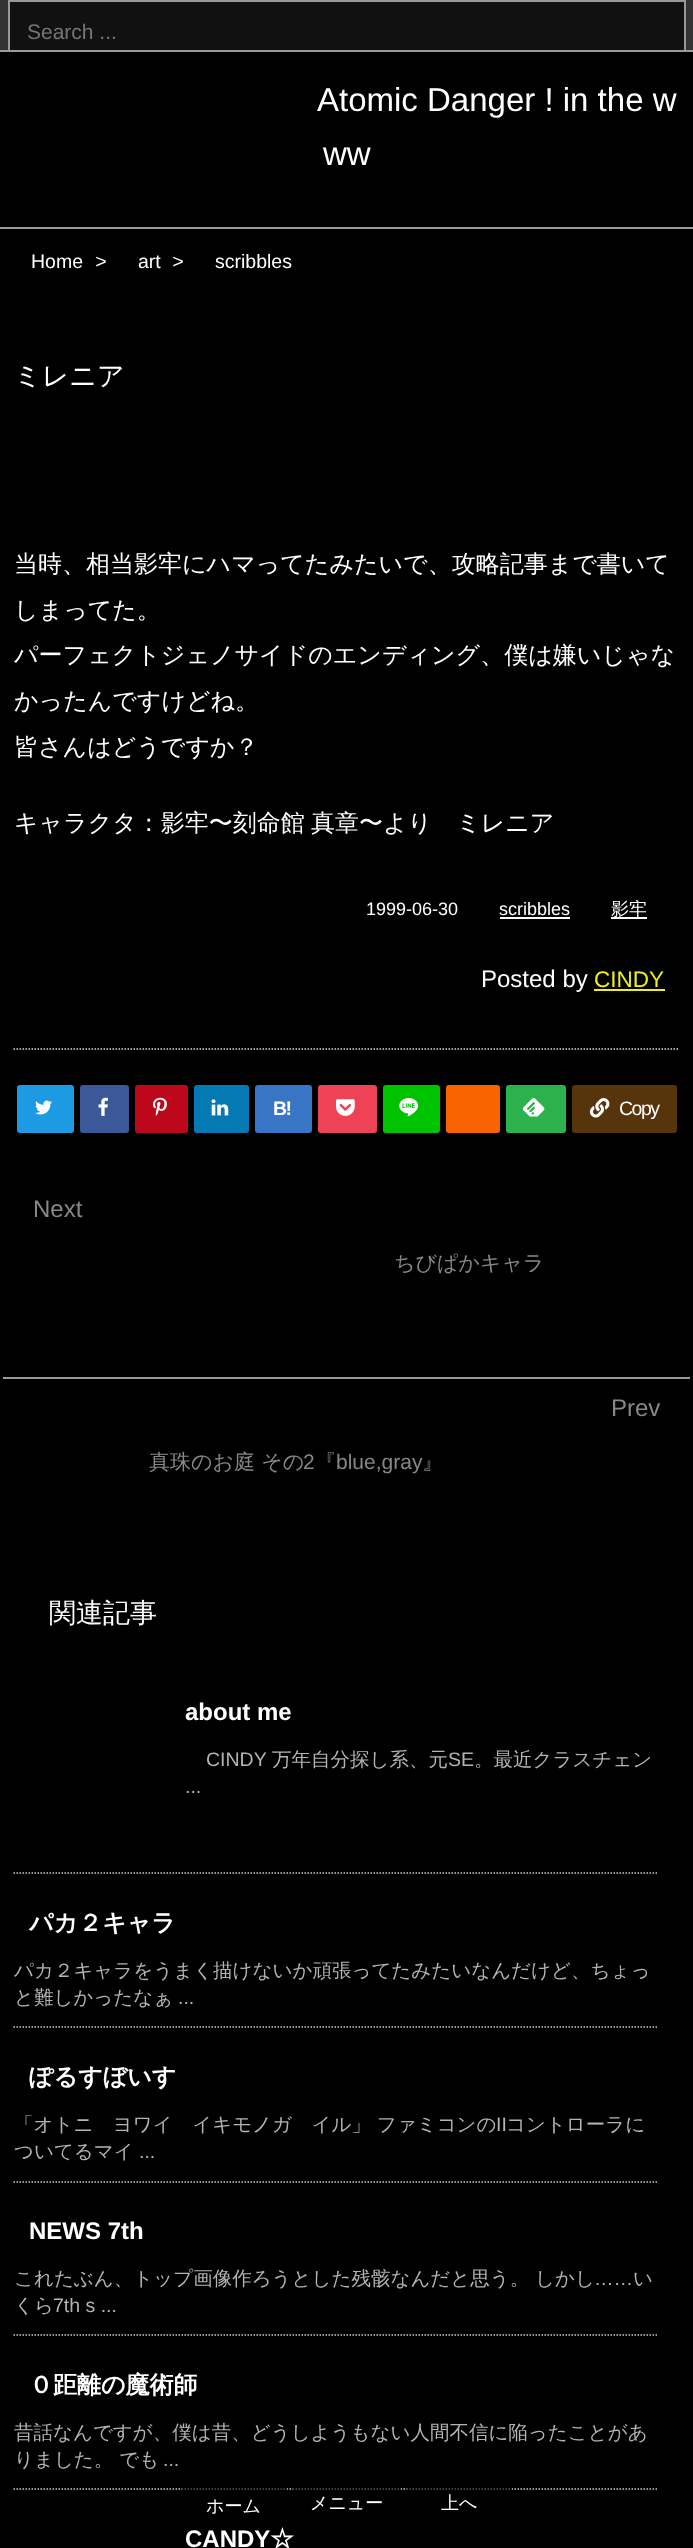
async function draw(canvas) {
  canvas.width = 693;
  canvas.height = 2548;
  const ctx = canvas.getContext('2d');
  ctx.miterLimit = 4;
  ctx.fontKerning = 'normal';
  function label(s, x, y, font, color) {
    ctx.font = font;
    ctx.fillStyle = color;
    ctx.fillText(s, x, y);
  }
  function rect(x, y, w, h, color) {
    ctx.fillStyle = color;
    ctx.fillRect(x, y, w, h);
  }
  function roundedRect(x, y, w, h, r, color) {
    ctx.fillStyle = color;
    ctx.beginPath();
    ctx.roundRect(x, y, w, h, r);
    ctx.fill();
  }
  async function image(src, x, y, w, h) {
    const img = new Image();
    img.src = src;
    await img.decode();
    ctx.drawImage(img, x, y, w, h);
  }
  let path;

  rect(0, 0, 693, 2548, '#000');
  rect(0, 0, 693, 50, '#333');
  rect(0, 50, 693, 2, '#999');
  rect(10, 2, 674, 48, '#111');
  ctx.save();
  ctx.beginPath();
  ctx.rect(0, 0, 693, 50);
  ctx.clip();
  ctx.strokeStyle = '#999';
  ctx.lineWidth = 2;
  ctx.strokeRect(9, 1, 676, 60);
  ctx.restore();
  label('Search ...', 27, 39, '21px Liberation Sans', '#757575');
  rect(0, 227, 693, 2, '#999');
  label('Atomic Danger ! in the w', 317, 111, '33px Liberation Sans', '#fff');
  label('ww', 323, 165, '33px Liberation Sans', '#fff');
  label('Home', 31, 268, '19.5px Liberation Sans', '#fff');
  label('>', 95, 268, 'italic 19.5px Liberation Sans', '#fff');
  label('art', 138, 268, '19.5px Liberation Sans', '#fff');
  label('>', 172, 268, 'italic 19.5px Liberation Sans', '#fff');
  label('scribbles', 215, 268, '19.5px Liberation Sans', '#fff');
  label('ミレニア', 14, 385, '500 27px WenQuanYi Zen Hei', '#fff');
  label('当時、相当影牢にハマってたみたいで、攻略記事まで書いて', 14, 572, '500 24px WenQuanYi Zen Hei', '#fff');
  label('しまってた。', 14, 618, '500 24px WenQuanYi Zen Hei', '#fff');
  label('パーフェクトジェノサイドのエンディング、僕は嫌いじゃな', 14, 663, '500 24px WenQuanYi Zen Hei', '#fff');
  label('かったんですけどね。', 14, 709, '500 24px WenQuanYi Zen Hei', '#fff');
  label('皆さんはどうですか？', 14, 755, '500 24px WenQuanYi Zen Hei', '#fff');
  ctx.wordSpacing = '-1px';
  label('キャラクタ：影牢〜刻命館 真章〜より　ミレニア', 14, 831, '500 24px WenQuanYi Zen Hei', '#fff');
  ctx.wordSpacing = '0px';
  label('1999-06-30', 366, 915, '18px Liberation Sans', '#fff');
  label('scribbles', 499, 915, '18px Liberation Sans', '#fff');
  rect(500, 917, 70, 2, '#fff');
  rect(611, 917, 36, 2, '#fff');
  label('影牢', 611, 915, '500 18px WenQuanYi Zen Hei', '#fff');
  label('Posted by', 481, 987, '24px Liberation Sans', '#fff');
  label('CINDY', 594, 987, '22.5px Liberation Sans', '#ee2');
  rect(594, 989, 71, 2, '#ee2');
  path = new Path2D('M13.5 1049H679.5');
  ctx.strokeStyle = '#ddd';
  ctx.lineWidth = 1.5;
  ctx.setLineDash([1.5, 1.5]);
  ctx.stroke(path);
  roundedRect(17, 1085, 57, 48, 3, '#1c9be2');
  await image('assets/img1.png', 35, 1100, 17, 15);
  roundedRect(80, 1085, 49, 48, 3, '#3b5998');
  await image('assets/img2.png', 98, 1097, 10, 19);
  roundedRect(135, 1085, 53, 48, 3, '#bd081c');
  await image('assets/img3.png', 153, 1097, 14, 19);
  roundedRect(194, 1085, 55, 48, 3, '#0479b4');
  await image('assets/img4.png', 211, 1099, 18, 17);
  roundedRect(255, 1085, 57, 48, 3, '#3875c4');
  ctx.letterSpacing = '-1.5px';
  label('B!', 273, 1115, 'bold 19.5px Liberation Sans', '#fff');
  roundedRect(318, 1085, 59, 48, 3, '#ee4257');
  await image('assets/img5.png', 336, 1099, 19, 17);
  roundedRect(383, 1085, 57, 48, 3, '#00c300');
  await image('assets/img6.png', 399, 1098, 20, 19);
  roundedRect(446, 1085, 54, 48, 3, '#f86300');
  roundedRect(506, 1085, 60, 48, 3, '#2bb24c');
  await image('assets/img7.png', 522, 1098, 23, 19);
  roundedRect(572, 1085, 105, 48, 3, '#56350d');
  await image('assets/img8.png', 589, 1098, 21, 20);
  label('Copy', 619, 1115, '19.5px Liberation Sans', '#fff');
  rect(3, 1377, 687, 2, '#999');
  ctx.letterSpacing = '0px';
  label('Next', 33, 1217, '24px Liberation Sans', '#888786');
  label('ちびぱかキャラ', 394, 1270, '500 21px WenQuanYi Zen Hei', '#888786');
  label('Prev', 611, 1416, '24px Liberation Sans', '#888786');
  label('真珠のお庭 その', 149, 1469, '500 21px WenQuanYi Zen Hei', '#888786');
  label('2', 303, 1469, '21px Liberation Sans', '#888786');
  label('『', 315, 1469, '500 21px WenQuanYi Zen Hei', '#888786');
  label('blue,gray', 336, 1469, '21px Liberation Sans', '#888786');
  label('』', 422, 1469, '500 21px WenQuanYi Zen Hei', '#888786');
  label('関連記事', 49, 1622, '500 27px WenQuanYi Zen Hei', '#fff');
  label('about me', 185, 1720, 'bold 24px Liberation Sans', '#fff');
  label('CINDY', 206, 1766, '19.5px Liberation Sans', '#b3b3b3');
  label('万年自分探し系、元', 272, 1766, '500 19.5px WenQuanYi Zen Hei', '#b3b3b3');
  label('SE', 448, 1766, '19.5px Liberation Sans', '#b3b3b3');
  label('。最近クラスチェン', 474, 1766, '500 19.5px WenQuanYi Zen Hei', '#b3b3b3');
  label('...', 185, 1793, '19.5px Liberation Sans', '#b3b3b3');
  path = new Path2D('M13.5 1873H657');
  ctx.strokeStyle = '#ccc';
  ctx.stroke(path);
  label('パカ２キャラ', 29, 1931, 'bold 24px WenQuanYi Zen Hei', '#fff');
  label('パカ２キャラをうまく描けないか頑張ってたみたいなんだけど、ちょっ', 14, 1977, '500 19.5px WenQuanYi Zen Hei', '#b3b3b3');
  label('と難しかったなぁ', 14, 2004, '500 19.5px WenQuanYi Zen Hei', '#b3b3b3');
  label('...', 178, 2004, '19.5px Liberation Sans', '#b3b3b3');
  path = new Path2D('M13.5 2027H657');
  ctx.stroke(path);
  label('ぽるすぼいす', 29, 2085, 'bold 24px WenQuanYi Zen Hei', '#fff');
  label('「オトニ　ヨワイ　イキモノガ　イル」 ファミコンの', 14, 2131, '500 19.5px WenQuanYi Zen Hei', '#b3b3b3');
  label('II', 496, 2131, '19.5px Liberation Sans', '#b3b3b3');
  label('コントローラに', 506, 2131, '500 19.5px WenQuanYi Zen Hei', '#b3b3b3');
  label('ついてるマイ', 14, 2158, '500 19.5px WenQuanYi Zen Hei', '#b3b3b3');
  label('...', 139, 2158, '19.5px Liberation Sans', '#b3b3b3');
  path = new Path2D('M13.5 2182H657');
  ctx.stroke(path);
  label('NEWS 7th', 29, 2239, 'bold 24px Liberation Sans', '#fff');
  label('これたぶん、トップ画像作ろうとした残骸なんだと思う。 しかし', 14, 2285, '500 19.5px WenQuanYi Zen Hei', '#b3b3b3');
  label('……', 594, 2285, '19.5px Liberation Sans', '#b3b3b3');
  label('い', 633, 2285, '500 19.5px WenQuanYi Zen Hei', '#b3b3b3');
  label('くら', 14, 2312, '500 19.5px WenQuanYi Zen Hei', '#b3b3b3');
  label('7th s ...', 53, 2312, '19.5px Liberation Sans', '#b3b3b3');
  path = new Path2D('M13.5 2335H657');
  ctx.stroke(path);
  label('０距離の魔術師', 29, 2393, 'bold 24px WenQuanYi Zen Hei', '#fff');
  label('昔話なんですが、僕は昔、どうしようもない人間不信に陥ったことがあ', 14, 2439, '500 19.5px WenQuanYi Zen Hei', '#b3b3b3');
  label('りました。 でも', 14, 2466, '500 19.5px WenQuanYi Zen Hei', '#b3b3b3');
  label('...', 163, 2466, '19.5px Liberation Sans', '#b3b3b3');
  path = new Path2D('M13.5 2489H657');
  ctx.stroke(path);
  label('CANDY', 185, 2547, 'bold 24px Liberation Sans', '#fff');
  label('☆', 270, 2547, 'bold 24px WenQuanYi Zen Hei', '#fff');
  rect(182, 2488, 105, 2, '#00000099');
  label('ホーム', 206, 2512, '500 18px WenQuanYi Zen Hei', '#fff');
  rect(293, 2488, 108, 2, '#00000099');
  label('メニュー', 310, 2509, '500 18px WenQuanYi Zen Hei', '#fff');
  rect(407, 2488, 105, 2, '#00000099');
  label('上へ', 441, 2509, '500 18px WenQuanYi Zen Hei', '#fff');
}

draw(document.querySelector('canvas'));
